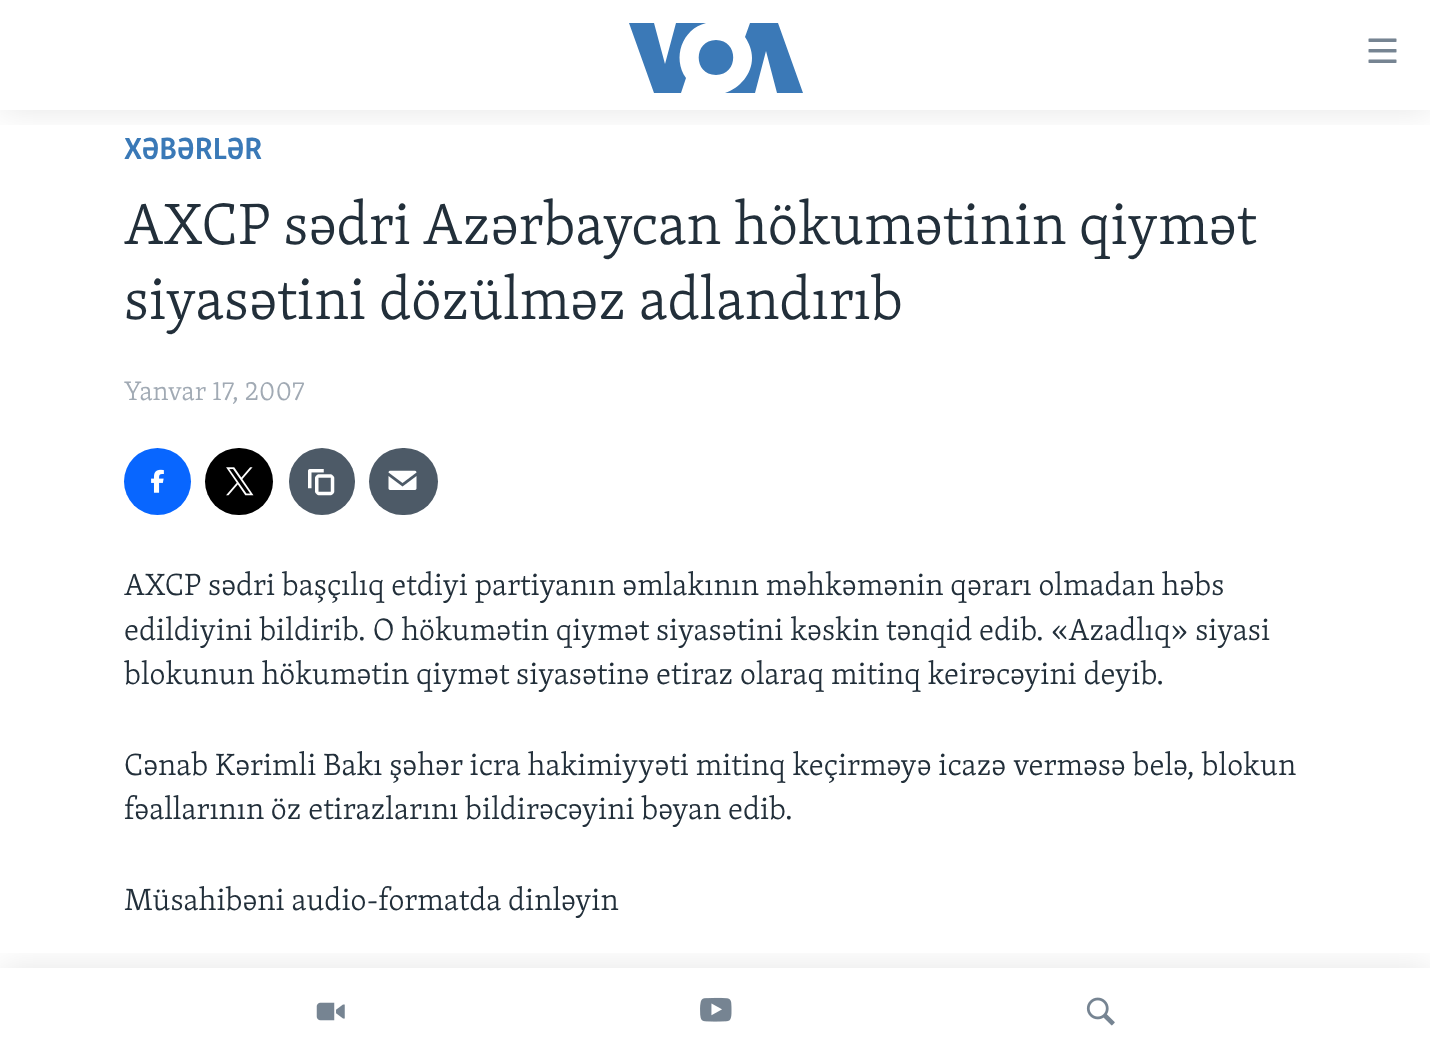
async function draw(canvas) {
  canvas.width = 1430;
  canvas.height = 1055;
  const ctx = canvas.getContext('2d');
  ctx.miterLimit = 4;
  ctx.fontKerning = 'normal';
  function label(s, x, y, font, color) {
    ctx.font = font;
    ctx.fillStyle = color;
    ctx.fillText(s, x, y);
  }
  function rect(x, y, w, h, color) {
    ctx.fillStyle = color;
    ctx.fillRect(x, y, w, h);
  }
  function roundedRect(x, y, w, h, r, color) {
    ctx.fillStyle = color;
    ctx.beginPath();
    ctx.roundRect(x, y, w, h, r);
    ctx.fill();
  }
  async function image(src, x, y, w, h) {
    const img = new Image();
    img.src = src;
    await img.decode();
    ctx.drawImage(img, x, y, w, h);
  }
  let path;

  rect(0, 0, 1430, 1055, '#fff');
  ctx.save();
  ctx.beginPath();
  ctx.rect(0, 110, 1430, 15);
  ctx.clip();
  ctx.fillStyle = '#0000001a';
  ctx.filter = 'blur(17.5px)';
  ctx.beginPath();
  ctx.rect(0, 0, 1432, 110);
  ctx.fill();
  ctx.filter = 'none';
  ctx.restore();
  ctx.fillStyle = '#3b79b7';
  path = new Path2D('M686 78L681 93H654L629 23H654L665 64L676 23H706C682 29 672 58 686 78ZM716 40C693 40 693 75 716 75C739 75 739 40 716 40ZM752 58C752 74 740 88 725 93H755L766 51L777 93H803L778 23H750L745 37C749 43 752 50 752 58Z');
  ctx.fill(path);
  await image('assets/img1.png', 1368, 38, 29, 25);
  ctx.save();
  ctx.beginPath();
  ctx.rect(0, 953, 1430, 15);
  ctx.clip();
  ctx.fillStyle = '#0000001a';
  ctx.filter = 'blur(17.5px)';
  ctx.beginPath();
  ctx.rect(0, 968, 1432, 87);
  ctx.fill();
  ctx.filter = 'none';
  ctx.restore();
  await image('assets/img2.png', 316, 1002, 29, 19);
  await image('assets/img3.png', 700, 997, 32, 25);
  await image('assets/img4.png', 1086, 997, 29, 29);
  label('XƏBƏRLƏR', 124, 159, 'bold 31.5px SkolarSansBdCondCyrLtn', '#3a79b7');
  label('AXCP sədri Azərbaycan hökumətinin qiymət', 124, 244, '300 59.8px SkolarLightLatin', '#222f3a');
  label('siyasətini dözülməz adlandırıb', 124, 319, '300 59.8px SkolarLightLatin', '#222f3a');
  label('Yanvar 17, 2007', 124, 400, '300 27.5px SkolarLightLatin', '#a1aab4');
  ctx.fillStyle = '#0866ff';
  ctx.beginPath();
  ctx.arc(157.5, 481.5, 33.5, 0, 2 * Math.PI);
  ctx.fill();
  await image('assets/img5.png', 151, 469, 13, 24);
  roundedRect(205, 448, 68, 67, 33.5, '#000');
  await image('assets/img6.png', 226, 467, 28, 29);
  roundedRect(289, 448, 66, 67, 33, '#4d5a67');
  await image('assets/img7.png', 308, 469, 27, 27);
  roundedRect(369, 448, 69, 67, 33.5, '#4d5a67');
  await image('assets/img8.png', 388, 470, 29, 20);
  label('AXCP sədri başçılıq etdiyi partiyanın əmlakının məhkəmənin qərarı olmadan həbs', 124, 595, '300 31.5px SkolarLightLatin', '#222f3a');
  label('edildiyini bildirib. O hökumətin qiymət siyasətini kəskin tənqid edib. «Azadlıq» siyasi', 124, 640, '300 31.5px SkolarLightLatin', '#222f3a');
  label('blokunun hökumətin qiymət siyasətinə etiraz olaraq mitinq keirəcəyini deyib.', 124, 684, '300 31.5px SkolarLightLatin', '#222f3a');
  label('Cənab Kərimli Bakı şəhər icra hakimiyyəti mitinq keçirməyə icazə verməsə belə, blokun', 124, 775, '300 31.5px SkolarLightLatin', '#222f3a');
  label('fəallarının öz etirazlarını bildirəcəyini bəyan edib.', 124, 819, '300 31.5px SkolarLightLatin', '#222f3a');
  label('Müsahibəni audio-formatda dinləyin', 124, 910, '300 31.5px SkolarLightLatin', '#222f3a');
}

draw(document.querySelector('canvas'));
